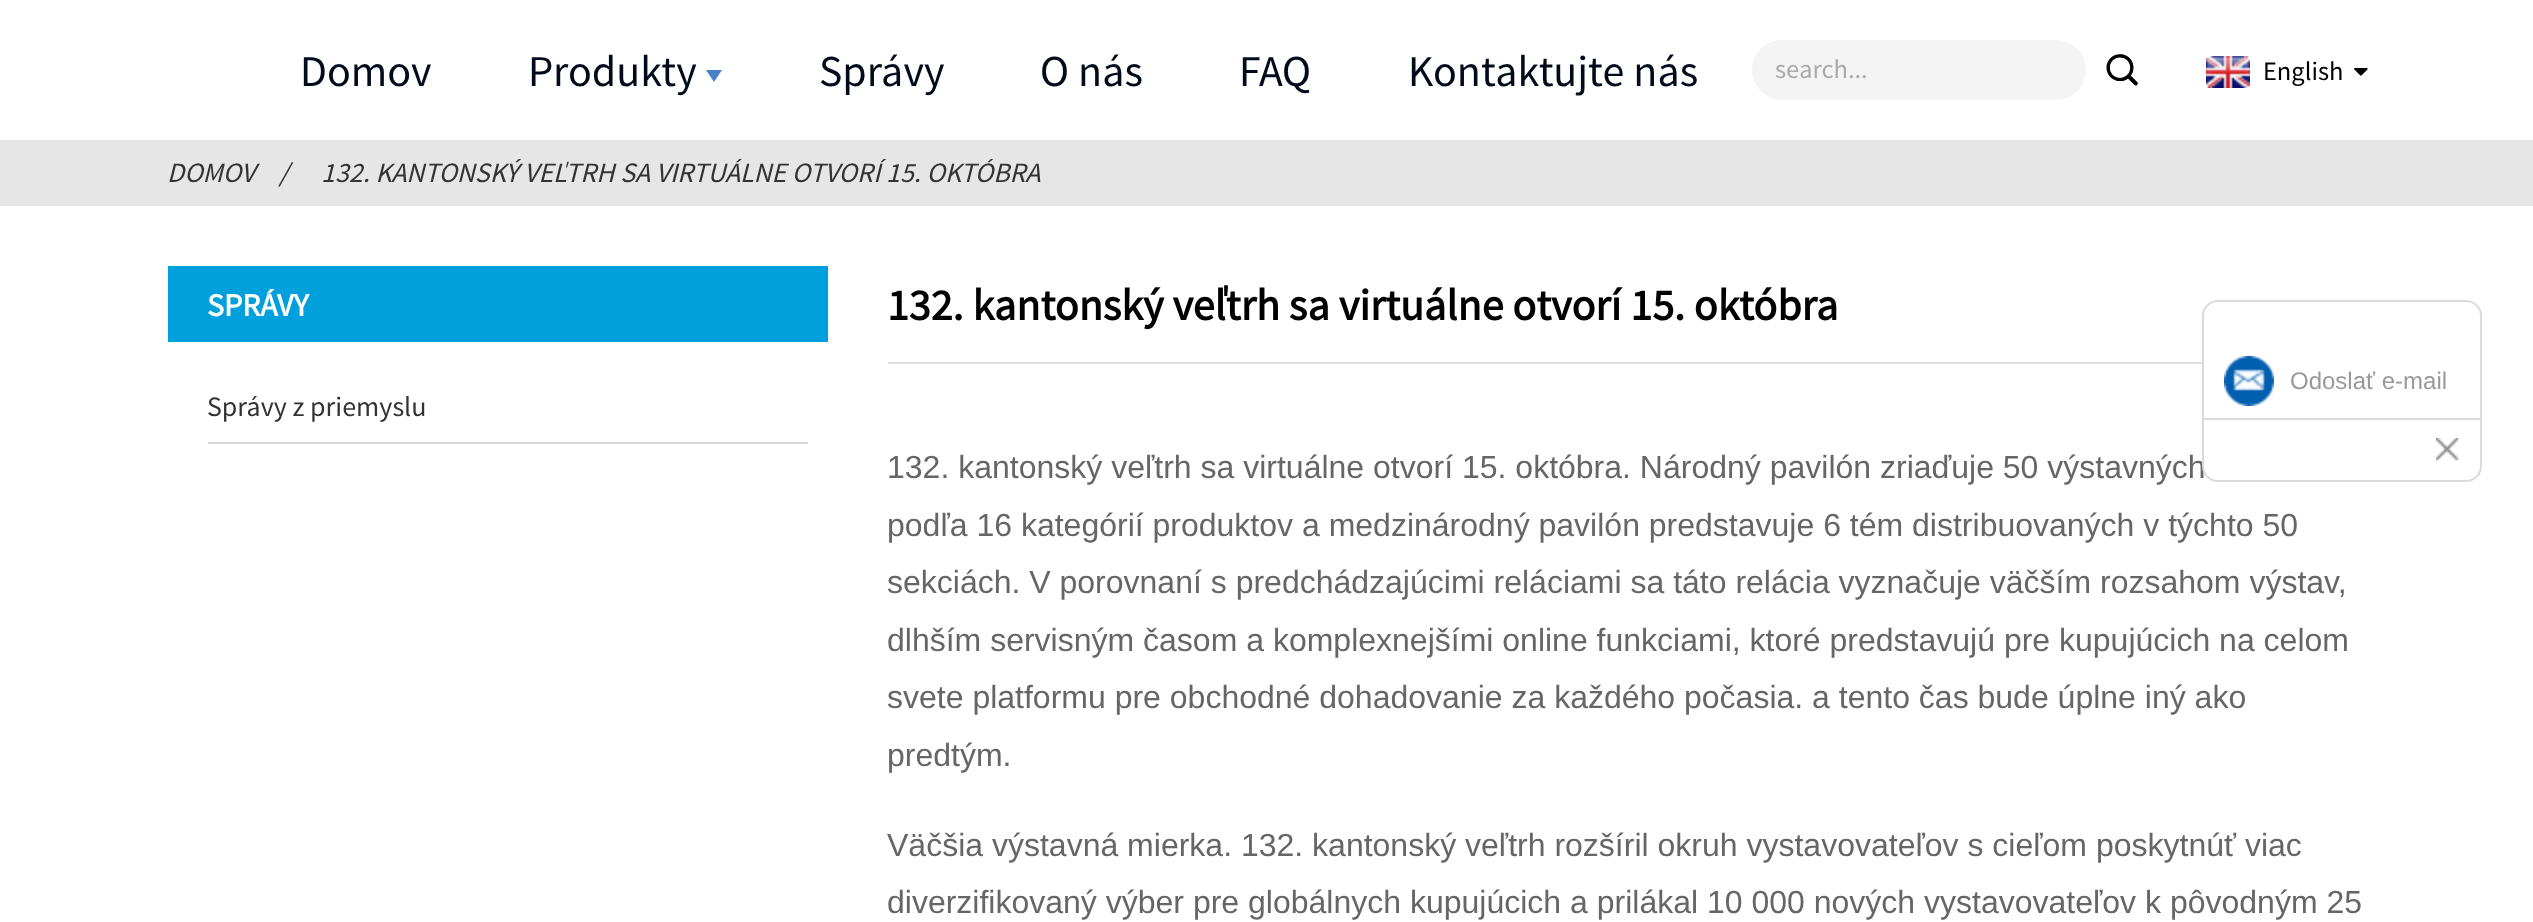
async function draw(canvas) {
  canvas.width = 2533;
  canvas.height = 922;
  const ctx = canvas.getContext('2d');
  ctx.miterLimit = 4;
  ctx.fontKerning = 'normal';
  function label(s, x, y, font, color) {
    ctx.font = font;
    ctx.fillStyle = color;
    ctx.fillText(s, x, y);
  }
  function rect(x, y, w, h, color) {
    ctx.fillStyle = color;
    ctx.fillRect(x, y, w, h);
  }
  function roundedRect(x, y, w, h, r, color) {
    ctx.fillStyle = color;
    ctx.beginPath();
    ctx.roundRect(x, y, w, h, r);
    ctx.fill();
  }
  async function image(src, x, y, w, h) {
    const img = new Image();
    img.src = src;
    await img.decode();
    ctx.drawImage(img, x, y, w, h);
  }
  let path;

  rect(0, 0, 2533, 922, '#fff');
  label('Domov', 300, 86, '44px Source Sans Pro', '#000c1c');
  label('Produkty', 528, 86, '44px Source Sans Pro', '#000c1c');
  ctx.fillStyle = '#4881c5';
  path = new Path2D('M706 70H722L714 82Z');
  ctx.fill(path);
  label('Správy', 819, 86, '44px Source Sans Pro', '#000c1c');
  label('O nás', 1040, 86, '44px Source Sans Pro', '#000c1c');
  label('FAQ', 1239, 86, '44px Source Sans Pro', '#000c1c');
  label('Kontaktujte nás', 1408, 86, '44px Source Sans Pro', '#000c1c');
  roundedRect(1752, 40, 334, 60, 30, '#f4f4f4');
  label('search...', 1775, 78, '26.5px Source Sans Pro', '#aaa');
  await image('assets/img1.png', 2106, 54, 32, 32);
  await image('assets/img2.png', 2206, 56, 44, 32);
  label('English', 2263, 80, '26.5px Source Sans Pro', '#000');
  await image('assets/img3.png', 2354, 68, 14, 8);
  rect(0, 140, 2533, 66, '#e6e6e6');
  label('DOMOV', 167, 182, 'italic 28px Source Sans Pro', '#333');
  label('/', 279, 182, 'italic 28px Source Sans Pro', '#333');
  label('132. KANTONSKÝ VEĽTRH SA VIRTUÁLNE OTVORÍ 15. OKTÓBRA', 321, 182, 'italic 28px Source Sans Pro', '#333');
  rect(168, 266, 660, 76, '#00a0dd');
  label('SPRÁVY', 207, 316, 'bold 32px Source Sans Pro', '#fff');
  rect(208, 442, 600, 2, '#d6d6d6');
  label('Správy z priemyslu', 207, 416, '28px Source Sans Pro', '#333');
  rect(888, 362, 1314, 2, '#ddd');
  label('132. kantonský veľtrh sa virtuálne otvorí 15. októbra', 887, 320, 'bold 44px Source Sans Pro', '#000');
  label('132. kantonský veľtrh sa virtuálne otvorí 15. októbra. Národný pavilón zriaďuje 50 výstavných', 887, 478, '32px Liberation Sans', '#666');
  label('podľa 16 kategórií produktov a medzinárodný pavilón predstavuje 6 tém distribuovaných v týchto 50', 887, 536, '32px Liberation Sans', '#666');
  label('sekciách. V porovnaní s predchádzajúcimi reláciami sa táto relácia vyznačuje väčším rozsahom výstav,', 887, 593, '32px Liberation Sans', '#666');
  label('dlhším servisným časom a komplexnejšími online funkciami, ktoré predstavujú pre kupujúcich na celom', 887, 651, '32px Liberation Sans', '#666');
  label('svete platformu pre obchodné dohadovanie za každého počasia. a tento čas bude úplne iný ako', 887, 708, '32px Liberation Sans', '#666');
  label('predtým.', 887, 766, '32px Liberation Sans', '#666');
  label('Väčšia výstavná mierka. 132. kantonský veľtrh rozšíril okruh vystavovateľov s cieľom poskytnúť viac', 887, 856, '32px Liberation Sans', '#666');
  label('diverzifikovaný výber pre globálnych kupujúcich a prilákal 10 000 nových vystavovateľov k pôvodným 25', 887, 913, '32px Liberation Sans', '#666');
  ctx.fillStyle = '#fff';
  ctx.beginPath();
  ctx.roundRect(2203, 301, 278, 180, 15);
  ctx.fill();
  ctx.strokeStyle = '#dadada';
  ctx.lineWidth = 2;
  ctx.stroke();
  rect(2204, 418, 276, 2, '#dadada');
  await image('assets/img4.png', 2224, 356, 50, 50);
  label('Odoslať e-mail', 2290, 389, '24px Liberation Sans', '#999');
  await image('assets/img5.png', 2436, 438, 23, 23);
}

draw(document.querySelector('canvas'));
